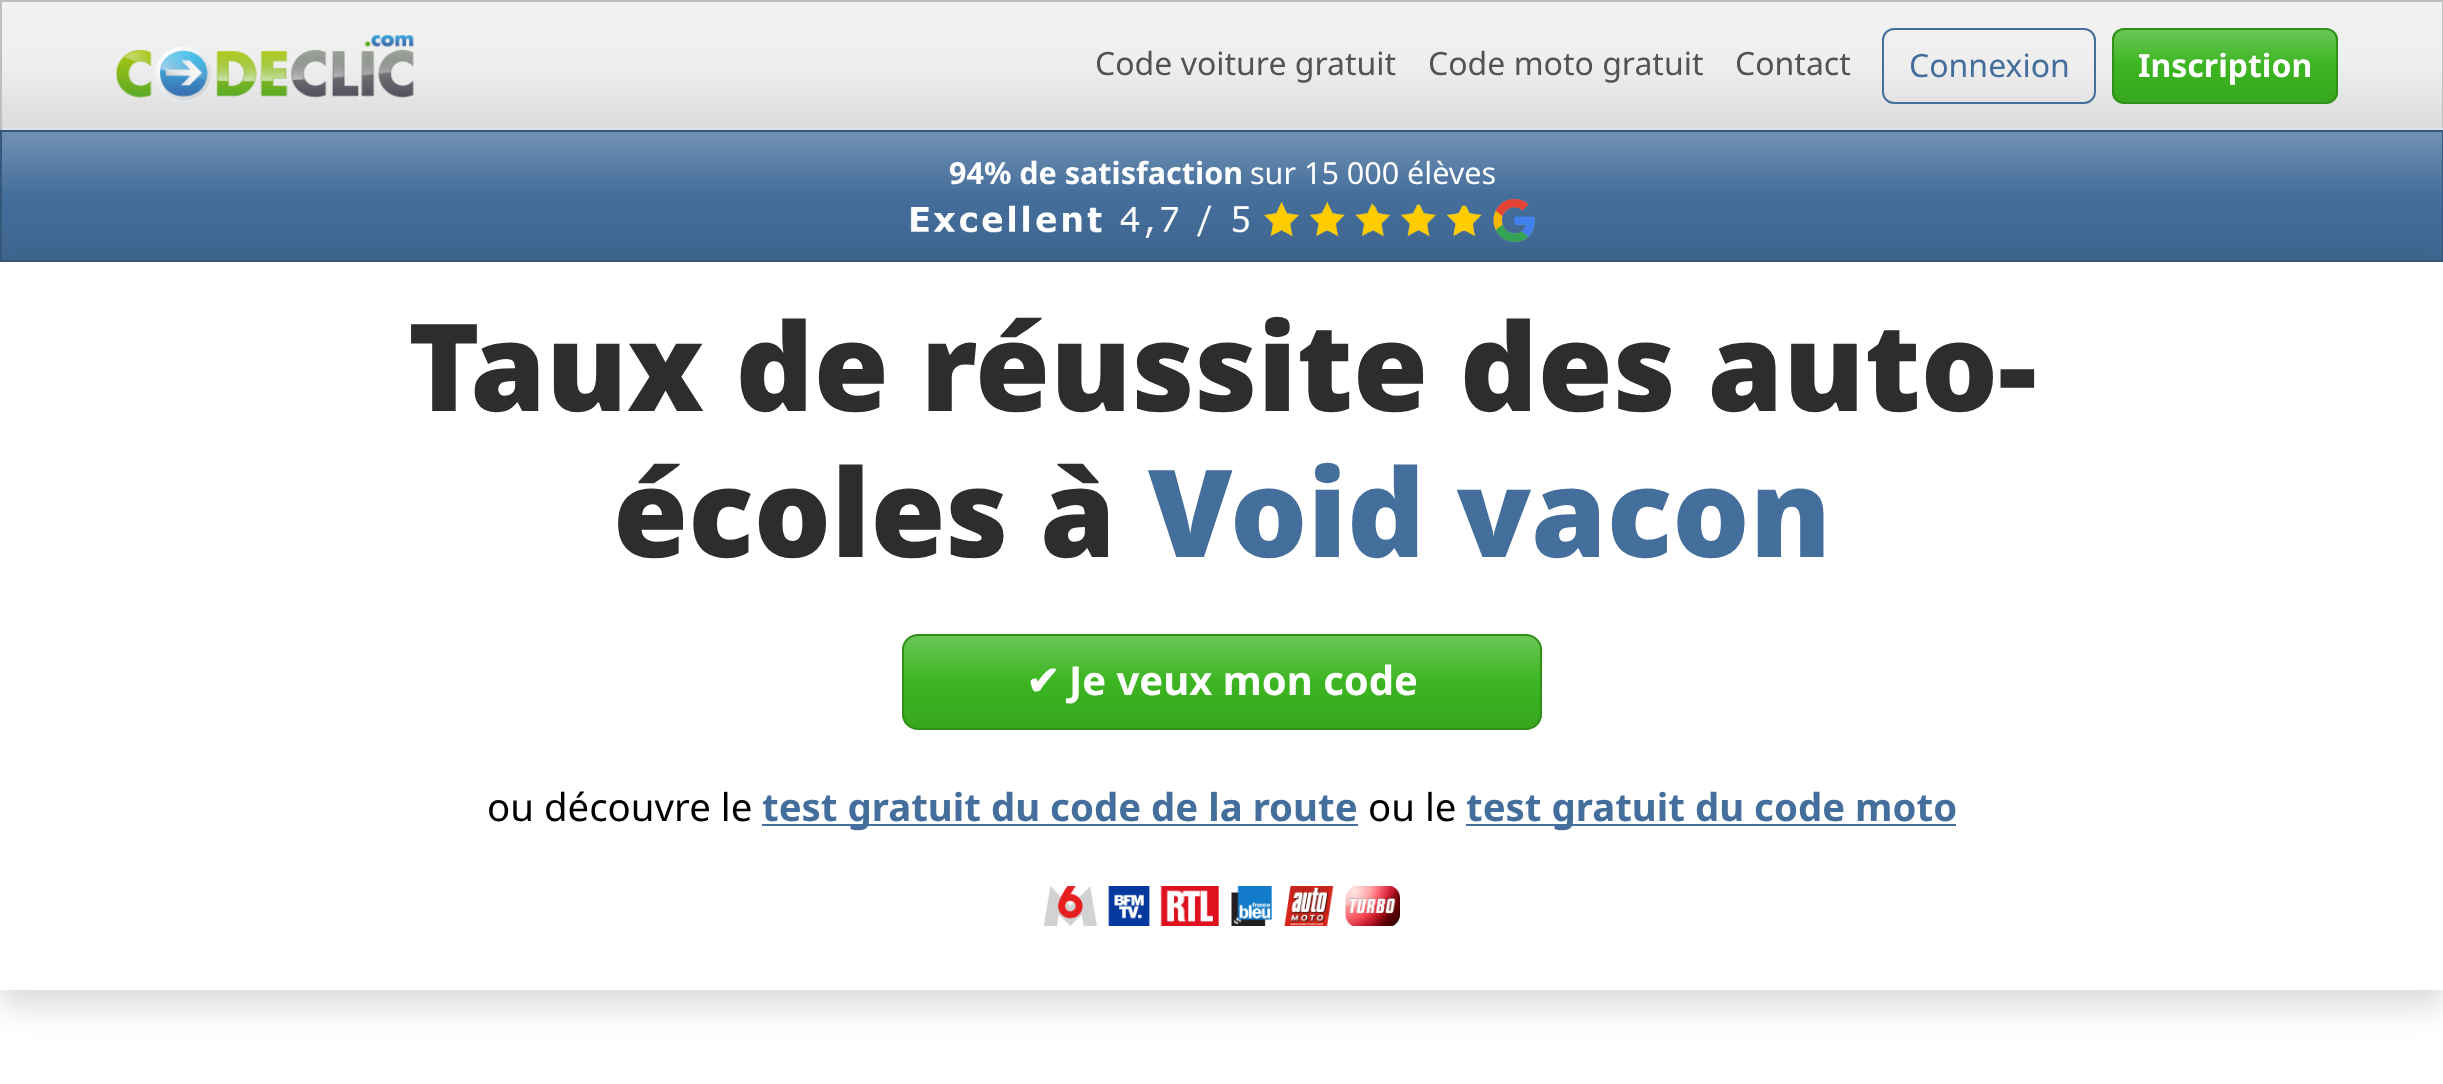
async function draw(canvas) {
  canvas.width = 2443;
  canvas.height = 1084;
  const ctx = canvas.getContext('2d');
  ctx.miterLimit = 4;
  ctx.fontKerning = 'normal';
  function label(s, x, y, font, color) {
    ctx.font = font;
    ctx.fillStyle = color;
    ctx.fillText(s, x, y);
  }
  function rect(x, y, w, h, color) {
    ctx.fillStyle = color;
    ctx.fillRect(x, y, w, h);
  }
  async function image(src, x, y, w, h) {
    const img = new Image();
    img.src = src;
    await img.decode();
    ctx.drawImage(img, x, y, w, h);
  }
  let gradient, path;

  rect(0, 0, 2443, 1084, '#fff');
  gradient = ctx.createLinearGradient(1222, 2, 1222, 128);
  gradient.addColorStop(0, '#f2f2f2');
  gradient.addColorStop(0.5, '#eee');
  gradient.addColorStop(1, '#dbdbdb');
  ctx.fillStyle = gradient;
  ctx.fillRect(2, 2, 2440, 126);
  rect(0, 0, 2443, 2, '#bebebe');
  rect(2442, 0, 1, 130, '#bebebe');
  rect(0, 128, 2443, 2, '#dee2e6');
  rect(0, 0, 2, 130, '#bebebe');
  await image('assets/img1.png', 116, 35, 298, 67);
  label('Code voiture gratuit', 1095, 75, '32px Noto Sans', '#535353');
  label('Code moto gratuit', 1428, 75, '32px Noto Sans', '#535353');
  label('Contact', 1735, 75, '32px Noto Sans', '#535353');
  ctx.beginPath();
  ctx.roundRect(1883, 29, 212, 74, 11);
  ctx.strokeStyle = '#446e9b';
  ctx.lineWidth = 2;
  ctx.stroke();
  label('Connexion', 1909, 77, '32px Noto Sans', '#446e9b');
  ctx.save();
  ctx.beginPath();
  ctx.roundRect(2112, 28, 226, 76, 12);
  ctx.clip();
  gradient = ctx.createLinearGradient(2225, 30, 2225, 102);
  gradient.addColorStop(0, '#6bc756');
  gradient.addColorStop(0.5, '#3cb521');
  gradient.addColorStop(1, '#37a71e');
  ctx.fillStyle = gradient;
  ctx.fillRect(2112, 30, 226, 72);
  ctx.restore();
  ctx.beginPath();
  ctx.roundRect(2113, 29, 224, 74, 11);
  ctx.strokeStyle = '#30911a';
  ctx.stroke();
  label('Inscription', 2138, 77, 'bold 32px Noto Sans', '#fff');
  gradient = ctx.createLinearGradient(1222, 132, 1222, 260);
  gradient.addColorStop(0, '#7191b3');
  gradient.addColorStop(0.5, '#446e9b');
  gradient.addColorStop(1, '#3f658f');
  ctx.fillStyle = gradient;
  ctx.fillRect(2, 132, 2440, 128);
  ctx.strokeStyle = '#36587c';
  ctx.strokeRect(1, 131, 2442, 130);
  label('94% de satisfaction', 949, 184, 'bold 30.5px Noto Sans', '#fff');
  label('sur 15 000 élèves', 1250, 184, '30.5px Noto Sans', '#fff');
  await image('assets/img2.png', 910, 198, 625, 44);
  ctx.save();
  path = new Path2D('M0 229H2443V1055H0ZM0 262H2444V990H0Z');
  ctx.clip(path, 'evenodd');
  ctx.fillStyle = '#00000026';
  ctx.filter = 'blur(16px)';
  ctx.beginPath();
  ctx.rect(0, 278, 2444, 728);
  ctx.fill();
  ctx.filter = 'none';
  ctx.restore();
  label('Taux de réussite des auto-', 408, 411, '900 121.6px Noto Sans', '#2d2d2d');
  label('écoles à', 613, 557, '900 121.6px Noto Sans', '#2d2d2d');
  label('Void vacon', 1148, 557, '900 121.6px Noto Sans', '#446e9b');
  ctx.save();
  ctx.beginPath();
  ctx.roundRect(902, 634, 640, 96, 16);
  ctx.clip();
  gradient = ctx.createLinearGradient(1222, 636, 1222, 728);
  gradient.addColorStop(0, '#6bc756');
  gradient.addColorStop(0.5, '#3cb521');
  gradient.addColorStop(1, '#37a71e');
  ctx.fillStyle = gradient;
  ctx.fillRect(902, 636, 640, 92);
  ctx.restore();
  ctx.beginPath();
  ctx.roundRect(903, 635, 638, 94, 15);
  ctx.strokeStyle = '#30911a';
  ctx.stroke();
  label('✔︎', 1026, 695, 'bold 40px DejaVu Sans', '#fff');
  label('Je veux mon code', 1069, 695, 'bold 40px Noto Sans', '#fff');
  label('ou découvre le', 487, 821, '38.4px Noto Sans', '#000');
  rect(762, 824, 596, 2, '#446e9b');
  label('test gratuit du code de la route', 762, 821, 'bold 38.4px Noto Sans', '#446e9b');
  label('ou le', 1368, 821, '38.4px Noto Sans', '#000');
  rect(1466, 824, 490, 2, '#446e9b');
  label('test gratuit du code moto', 1466, 821, 'bold 38.4px Noto Sans', '#446e9b');
  await image('assets/img3.png', 1044, 886, 356, 40);
}

draw(document.querySelector('canvas'));
